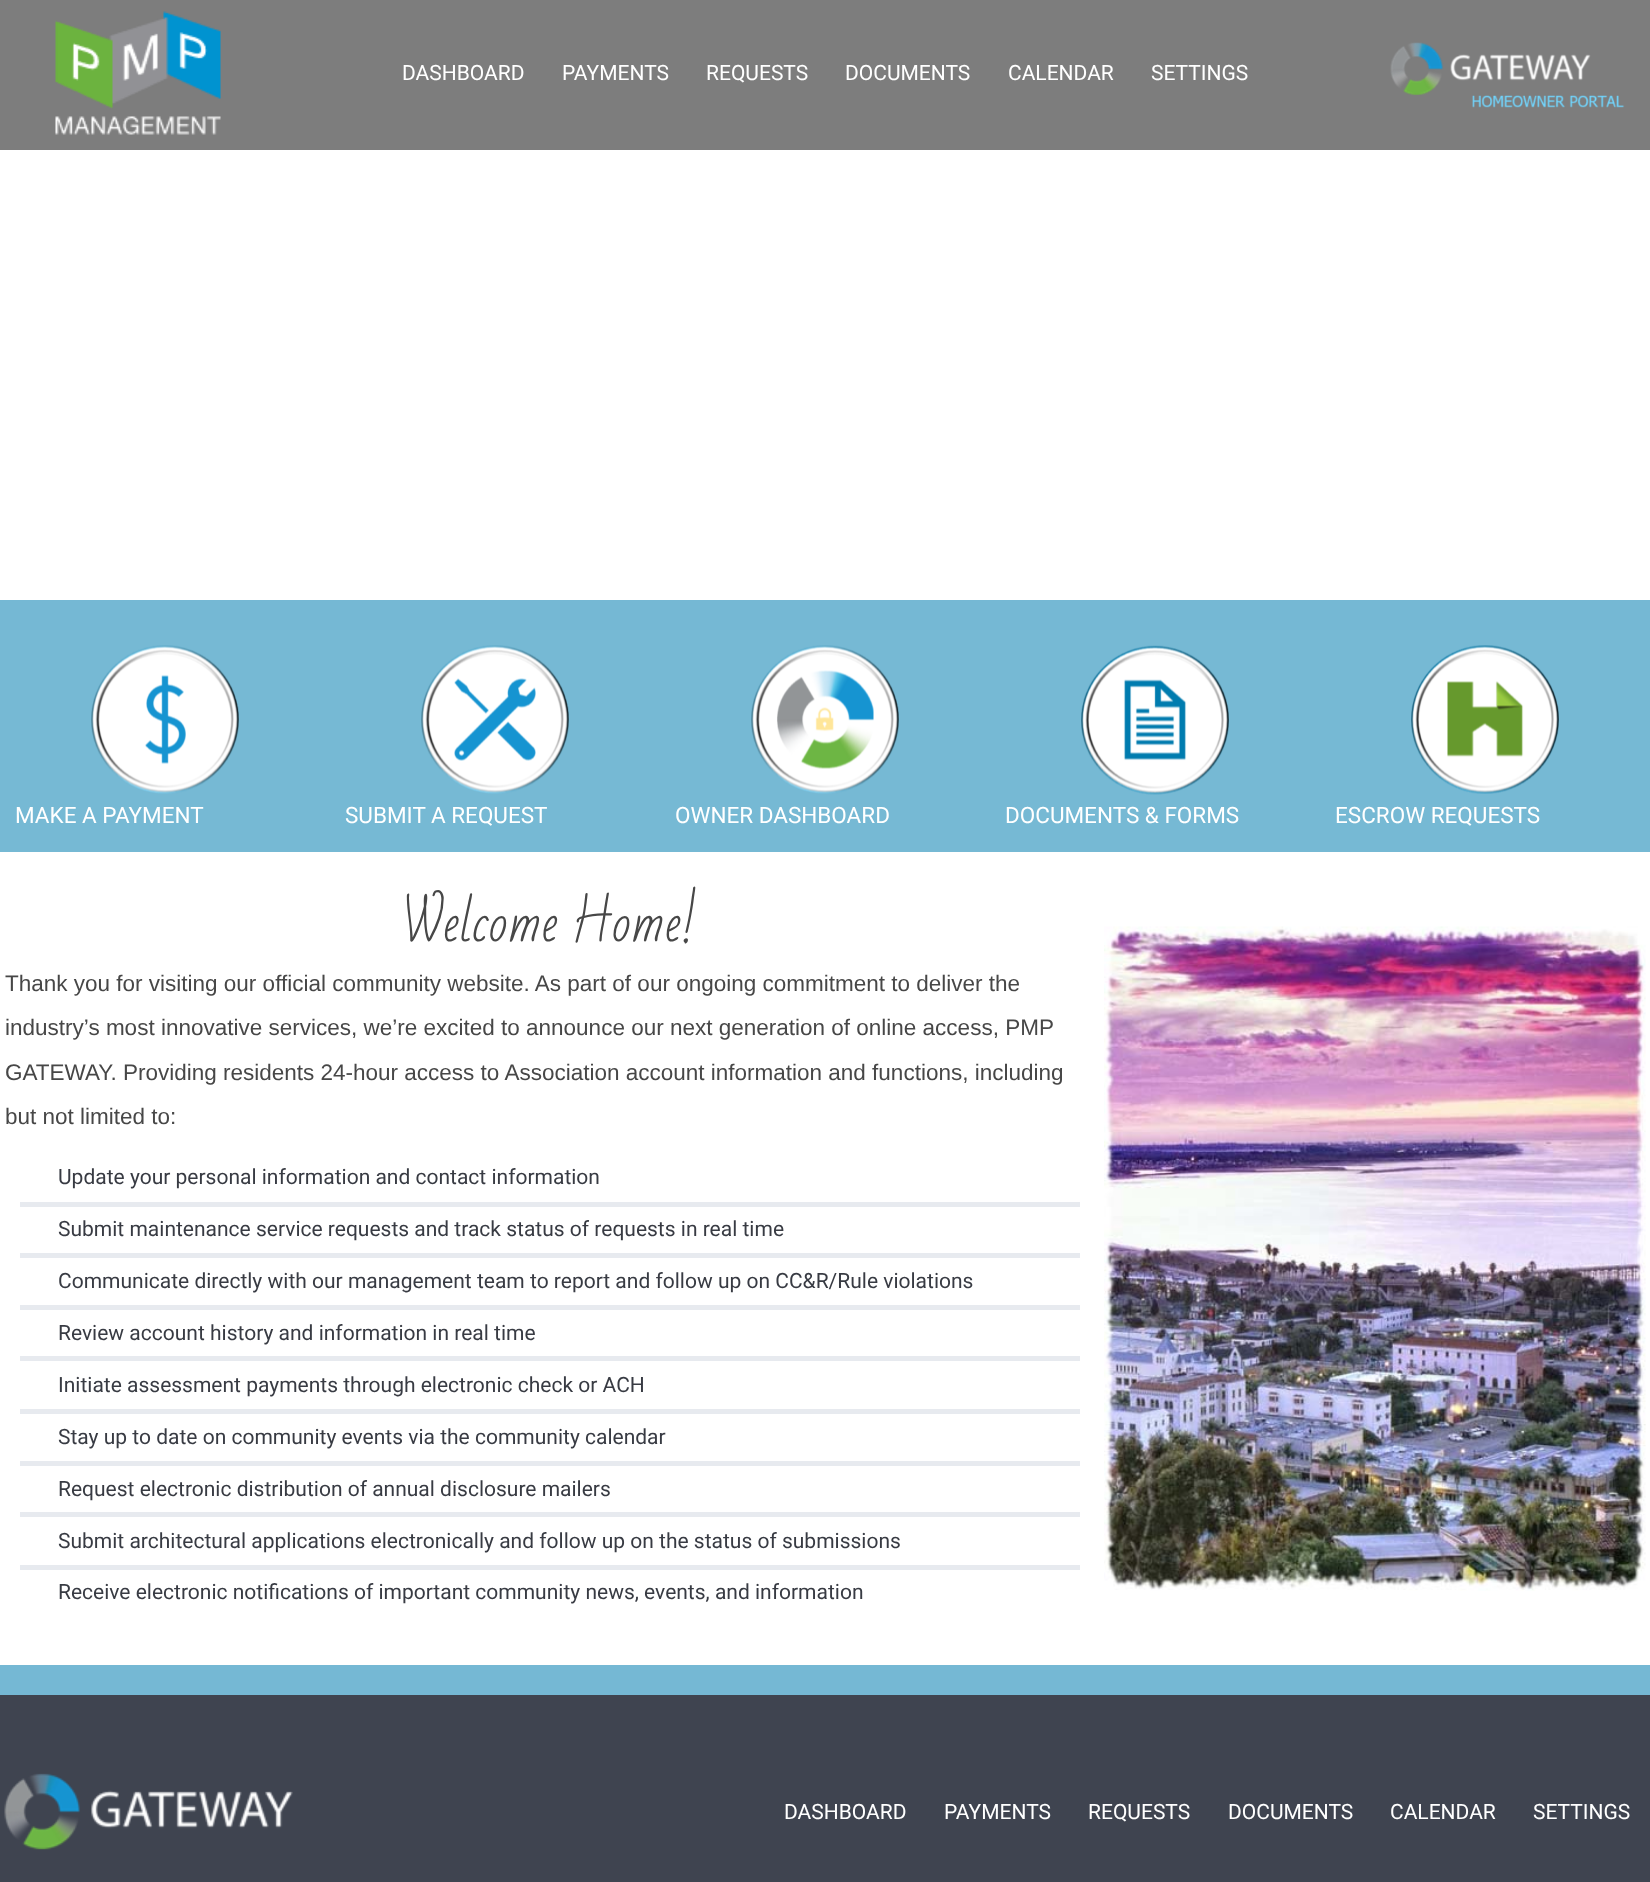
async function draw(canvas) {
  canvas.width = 1650;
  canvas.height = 1882;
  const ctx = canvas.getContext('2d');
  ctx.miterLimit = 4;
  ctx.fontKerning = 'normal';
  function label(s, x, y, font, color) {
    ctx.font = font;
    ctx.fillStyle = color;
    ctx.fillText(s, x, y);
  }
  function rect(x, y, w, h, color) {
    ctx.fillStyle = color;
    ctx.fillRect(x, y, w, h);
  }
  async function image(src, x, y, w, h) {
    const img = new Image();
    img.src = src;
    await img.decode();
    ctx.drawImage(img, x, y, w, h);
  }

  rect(0, 0, 1650, 1882, '#fff');
  rect(0, 0, 1650, 150, '#7d7d7d');
  await image('assets/img1.png', 55, 11, 166, 124);
  label('DASHBOARD', 402, 80, '21px Roboto', '#fff');
  label('PAYMENTS', 562, 80, '21px Roboto', '#fff');
  label('REQUESTS', 706, 80, '21px Roboto', '#fff');
  label('DOCUMENTS', 845, 80, '21px Roboto', '#fff');
  label('CALENDAR', 1008, 80, '21px Roboto', '#fff');
  label('SETTINGS', 1151, 80, '21px Roboto', '#fff');
  await image('assets/img2.png', 1390, 42, 235, 66);
  rect(0, 600, 1650, 30, '#75b8d4');
  rect(0, 630, 1650, 222, '#76b9d4');
  await image('assets/img3.png', 91, 645, 148, 149);
  label('MAKE A PAYMENT', 15, 823, '22.5px Roboto', '#fff');
  await image('assets/img4.png', 421, 645, 148, 149);
  label('SUBMIT A REQUEST', 345, 823, '22.5px Roboto', '#fff');
  await image('assets/img5.png', 751, 645, 148, 149);
  label('OWNER DASHBOARD', 675, 823, '22.5px Roboto', '#fff');
  await image('assets/img6.png', 1081, 645, 148, 150);
  label('DOCUMENTS & FORMS', 1005, 823, '22.5px Roboto', '#fff');
  await image('assets/img7.png', 1411, 645, 148, 149);
  label('ESCROW REQUESTS', 1335, 823, '22.5px Roboto', '#fff');
  label('Welcome Home!', 402, 941, '49.5px Bad Script', '#474747');
  label('Thank you for visiting our official community website. As part of our ongoing commitment to deliver the', 5, 991, '22.5px Liberation Sans', '#474747');
  label('industry’s most innovative services, we’re excited to announce our next generation of online access, PMP', 5, 1035, '22.5px Liberation Sans', '#474747');
  label('GATEWAY. Providing residents 24-hour access to Association account information and functions, including', 5, 1080, '22.5px Liberation Sans', '#474747');
  label('but not limited to:', 5, 1124, '22.5px Liberation Sans', '#474747');
  rect(20, 1202, 1060, 5, '#e7eaef');
  label('Update your personal information and contact information', 58, 1184, '21px Roboto', '#383b43');
  rect(20, 1253, 1060, 5, '#e7eaef');
  label('Submit maintenance service requests and track status of requests in real time', 58, 1236, '21px Roboto', '#383b43');
  rect(20, 1305, 1060, 5, '#e7eaef');
  label('Communicate directly with our management team to report and follow up on CC&R/Rule violations', 58, 1288, '21px Roboto', '#383b43');
  rect(20, 1356, 1060, 5, '#e7eaef');
  label('Review account history and information in real time', 58, 1340, '21px Roboto', '#383b43');
  rect(20, 1409, 1060, 5, '#e7eaef');
  label('Initiate assessment payments through electronic check or ACH', 58, 1392, '21px Roboto', '#383b43');
  rect(20, 1461, 1060, 5, '#e7eaef');
  label('Stay up to date on community events via the community calendar', 58, 1444, '21px Roboto', '#383b43');
  rect(20, 1512, 1060, 5, '#e7eaef');
  label('Request electronic distribution of annual disclosure mailers', 58, 1496, '21px Roboto', '#383b43');
  rect(20, 1565, 1060, 5, '#e7eaef');
  label('Submit architectural applications electronically and follow up on the status of submissions', 58, 1548, '21px Roboto', '#383b43');
  label('Receive electronic notifications of important community news, events, and information', 58, 1599, '21px Roboto', '#383b43');
  await image('assets/img8.png', 1104, 926, 542, 665);
  rect(0, 1665, 1650, 30, '#75b8d4');
  rect(0, 1695, 1650, 187, '#3f4450');
  await image('assets/img9.png', 4, 1773, 289, 77);
  label('DASHBOARD', 784, 1819, '21px Roboto', '#fff');
  label('PAYMENTS', 944, 1819, '21px Roboto', '#fff');
  label('REQUESTS', 1088, 1819, '21px Roboto', '#fff');
  label('DOCUMENTS', 1228, 1819, '21px Roboto', '#fff');
  label('CALENDAR', 1390, 1819, '21px Roboto', '#fff');
  label('SETTINGS', 1533, 1819, '21px Roboto', '#fff');
}

draw(document.querySelector('canvas'));
